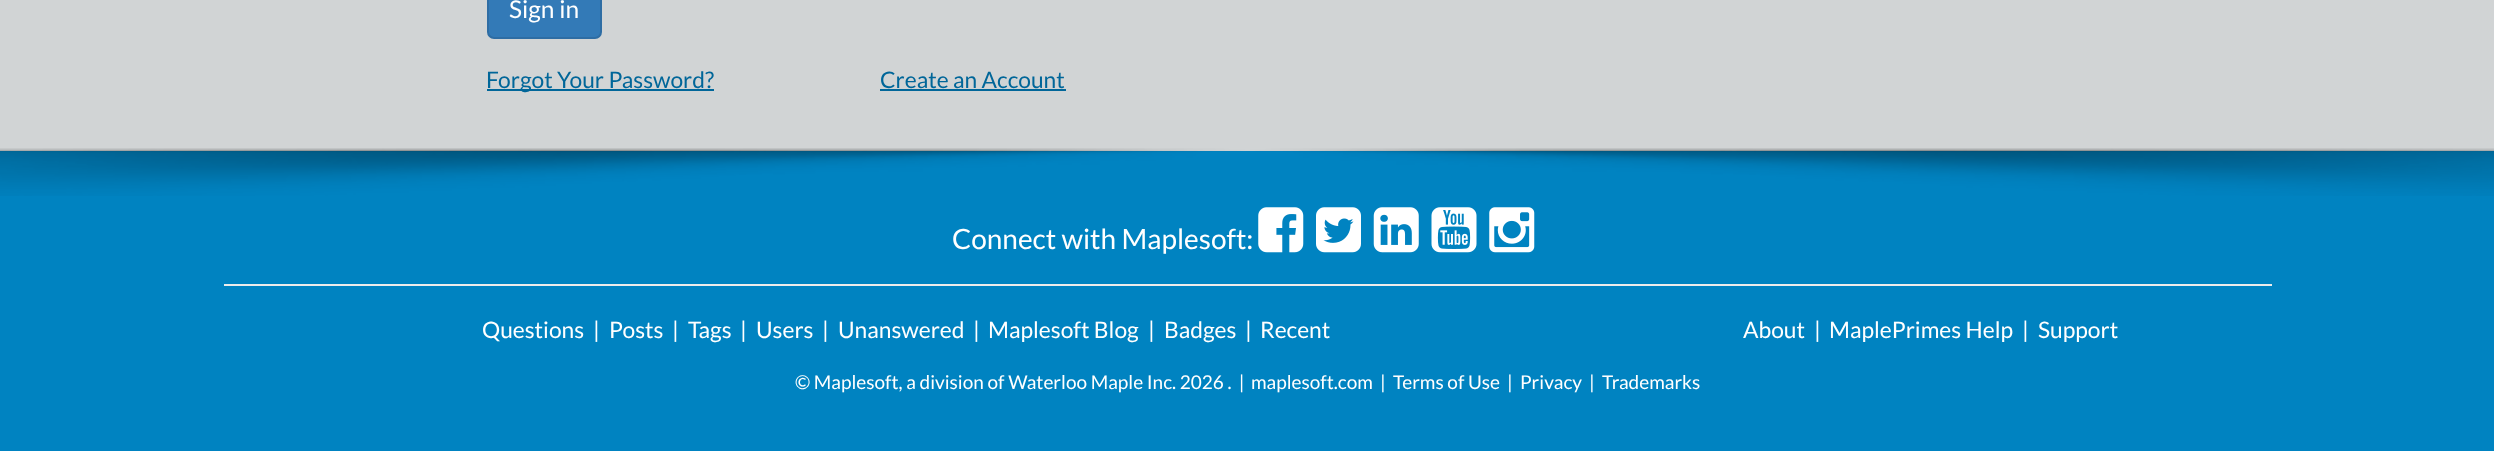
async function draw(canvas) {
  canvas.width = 2494;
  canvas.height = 451;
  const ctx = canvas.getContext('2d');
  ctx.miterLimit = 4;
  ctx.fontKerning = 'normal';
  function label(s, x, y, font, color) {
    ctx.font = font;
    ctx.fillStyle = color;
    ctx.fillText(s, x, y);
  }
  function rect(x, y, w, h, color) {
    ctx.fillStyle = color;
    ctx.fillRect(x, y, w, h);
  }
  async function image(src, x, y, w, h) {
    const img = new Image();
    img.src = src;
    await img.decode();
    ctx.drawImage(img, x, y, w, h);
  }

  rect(0, 0, 2494, 451, '#d1d4d5');
  ctx.fillStyle = '#337ab7';
  ctx.beginPath();
  ctx.roundRect(488, -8, 113, 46, 6);
  ctx.fill();
  ctx.strokeStyle = '#2e6da4';
  ctx.lineWidth = 2;
  ctx.stroke();
  label('Sign in', 509, 18, '24.5px Lato', '#fff');
  rect(487, 89, 227, 2, '#069');
  label('Forgot Your Password?', 486, 88, '22.75px Lato', '#069');
  label('Create an Account', 880, 88, '22.75px Lato', '#069');
  rect(880, 89, 186, 2, '#069');
  rect(0, 151, 2494, 300, '#0083c1');
  await image('assets/img1.png', 0, 148, 2494, 48);
  rect(224, 284, 2048, 2, '#ececec');
  label('Connect with Maplesoft:', 952, 249, '28px Lato', '#fff');
  await image('assets/img2.png', 1258, 207, 46, 46);
  await image('assets/img3.png', 1316, 207, 45, 46);
  await image('assets/img4.png', 1373, 207, 46, 46);
  await image('assets/img5.png', 1431, 207, 46, 46);
  await image('assets/img6.png', 1489, 207, 46, 46);
  label('Questions', 482, 338, '22.75px Lato', '#fff');
  label('|', 593, 338, '22.75px Lato', '#fff');
  label('Posts', 609, 338, '22.75px Lato', '#fff');
  label('|', 672, 338, '22.75px Lato', '#fff');
  label('Tags', 688, 338, '22.75px Lato', '#fff');
  label('|', 740, 338, '22.75px Lato', '#fff');
  label('Users', 756, 338, '22.75px Lato', '#fff');
  label('|', 822, 338, '22.75px Lato', '#fff');
  label('Unanswered', 838, 338, '22.75px Lato', '#fff');
  label('|', 973, 338, '22.75px Lato', '#fff');
  label('Maplesoft Blog', 988, 338, '22.75px Lato', '#fff');
  label('|', 1148, 338, '22.75px Lato', '#fff');
  label('Badges', 1164, 338, '22.75px Lato', '#fff');
  label('|', 1245, 338, '22.75px Lato', '#fff');
  label('Recent', 1260, 338, '22.75px Lato', '#fff');
  label('About', 1743, 338, '22.75px Lato', '#fff');
  label('|', 1814, 338, '22.75px Lato', '#fff');
  label('MaplePrimes Help', 1829, 338, '22.75px Lato', '#fff');
  label('|', 2022, 338, '22.75px Lato', '#fff');
  label('Support', 2038, 338, '22.75px Lato', '#fff');
  label('© Maplesoft, a division of Waterloo Maple Inc. 2026 .  |', 795, 389, '19px Lato', '#fff');
  label('maplesoft.com', 1251, 389, '19px Lato', '#fff');
  label('|', 1380, 389, '19px Lato', '#fff');
  label('Terms of Use', 1393, 389, '19px Lato', '#fff');
  label('|', 1507, 389, '19px Lato', '#fff');
  label('Privacy', 1520, 389, '19px Lato', '#fff');
  label('|', 1589, 389, '19px Lato', '#fff');
  label('Trademarks', 1602, 389, '19px Lato', '#fff');
}

draw(document.querySelector('canvas'));
